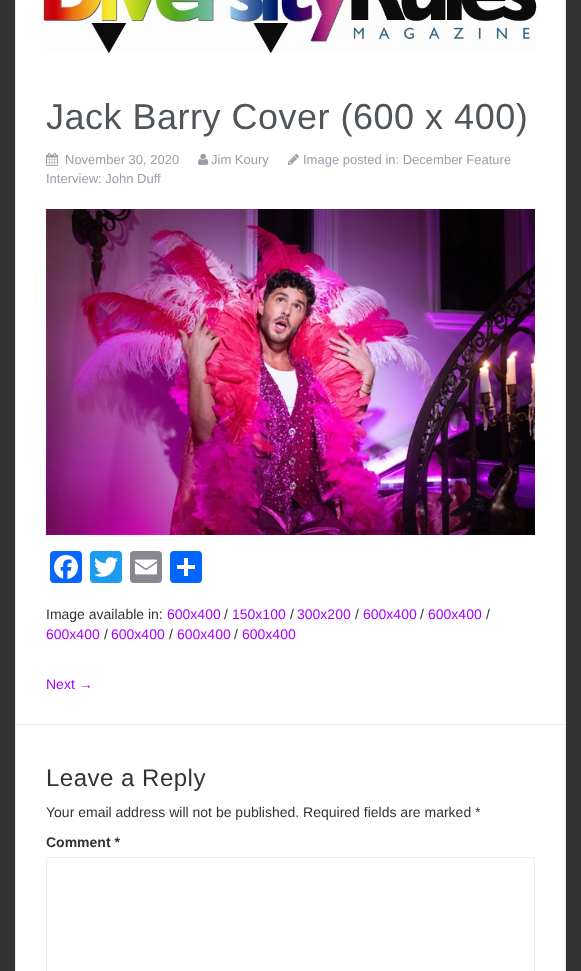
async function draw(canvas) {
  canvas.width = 581;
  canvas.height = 971;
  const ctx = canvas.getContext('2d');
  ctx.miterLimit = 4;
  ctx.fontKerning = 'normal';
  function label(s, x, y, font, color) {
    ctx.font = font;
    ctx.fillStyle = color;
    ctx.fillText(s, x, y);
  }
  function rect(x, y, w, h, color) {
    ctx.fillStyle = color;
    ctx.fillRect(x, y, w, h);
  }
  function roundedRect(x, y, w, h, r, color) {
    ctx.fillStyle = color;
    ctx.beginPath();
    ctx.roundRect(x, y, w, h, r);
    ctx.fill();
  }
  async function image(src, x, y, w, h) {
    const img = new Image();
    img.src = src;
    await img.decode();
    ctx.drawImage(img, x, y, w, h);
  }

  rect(0, 0, 581, 971, '#333');
  rect(16, 0, 549, 724, '#fff');
  rect(565, 0, 1, 971, '#ebebeb');
  rect(15, 0, 1, 67, '#ebebeb');
  await image('assets/img1.png', 41, 0, 496, 54);
  rect(15, 724, 551, 1, '#ebebeb');
  rect(15, 67, 1, 904, '#ebebeb');
  ctx.letterSpacing = '0.5px';
  label('Jack Barry Cover (600 x 400)', 46, 129, '36px Liberation Sans', '#505559');
  await image('assets/img2.png', 288, 154, 11, 11);
  ctx.letterSpacing = '0px';
  label('Image posted in: December Feature', 303, 164, '13px Liberation Sans', '#989fa8');
  label('Interview: John Duff', 46, 183, '13px Liberation Sans', '#989fa8');
  await image('assets/img3.png', 46, 152, 13, 14);
  label('November 30, 2020', 65, 164, '13px Liberation Sans', '#989fa8');
  await image('assets/img4.png', 198, 153, 11, 12);
  label('Jim Koury', 211, 164, '13px Liberation Sans', '#989fa8');
  await image('assets/img5.png', 46, 209, 489, 326);
  roundedRect(50, 551, 32, 32, 4, '#0866ff');
  await image('assets/img6.png', 54, 555, 24, 24);
  roundedRect(90, 551, 32, 32, 4, '#1d9bf0');
  await image('assets/img7.png', 94, 557, 24, 20);
  roundedRect(130, 551, 32, 32, 4, '#888990');
  await image('assets/img8.png', 135, 559, 22, 16);
  roundedRect(170, 551, 32, 32, 4, '#0166ff');
  rect(184, 558, 4, 18, '#fff');
  rect(177, 565, 18, 4, '#fff');
  label('Image available in:', 46, 619, '14px Liberation Sans', '#333');
  label('600x400', 167, 619, '14px Liberation Sans', '#a800ff');
  label('/', 224, 619, '14px Liberation Sans', '#333');
  label('150x100', 232, 619, '14px Liberation Sans', '#a800ff');
  label('/', 290, 619, '14px Liberation Sans', '#333');
  label('300x200', 297, 619, '14px Liberation Sans', '#a800ff');
  label('/', 355, 619, '14px Liberation Sans', '#333');
  label('600x400', 363, 619, '14px Liberation Sans', '#a800ff');
  label('/', 420, 619, '14px Liberation Sans', '#333');
  label('600x400', 428, 619, '14px Liberation Sans', '#a800ff');
  label('/', 486, 619, '14px Liberation Sans', '#333');
  label('600x400', 46, 639, '14px Liberation Sans', '#a800ff');
  label('/', 104, 639, '14px Liberation Sans', '#333');
  label('600x400', 111, 639, '14px Liberation Sans', '#a800ff');
  label('/', 169, 639, '14px Liberation Sans', '#333');
  label('600x400', 177, 639, '14px Liberation Sans', '#a800ff');
  label('/', 234, 639, '14px Liberation Sans', '#333');
  label('600x400', 242, 639, '14px Liberation Sans', '#a800ff');
  label('Next →', 46, 689, '14px Liberation Sans', '#a800ff');
  rect(16, 725, 549, 246, '#fff');
  ctx.letterSpacing = '0.5px';
  label('Leave a Reply', 46, 786, '24px Liberation Sans', '#333');
  ctx.letterSpacing = '0px';
  label('Your email address will not be published. Required fields are marked *', 46, 817, '14px Liberation Sans', '#333');
  label('Comment *', 46, 847, 'bold 14px Liberation Sans', '#333');
  ctx.beginPath();
  ctx.roundRect(46.5, 857.5, 488, 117, 2.5);
  ctx.strokeStyle = '#ebebeb';
  ctx.stroke();
}

draw(document.querySelector('canvas'));
